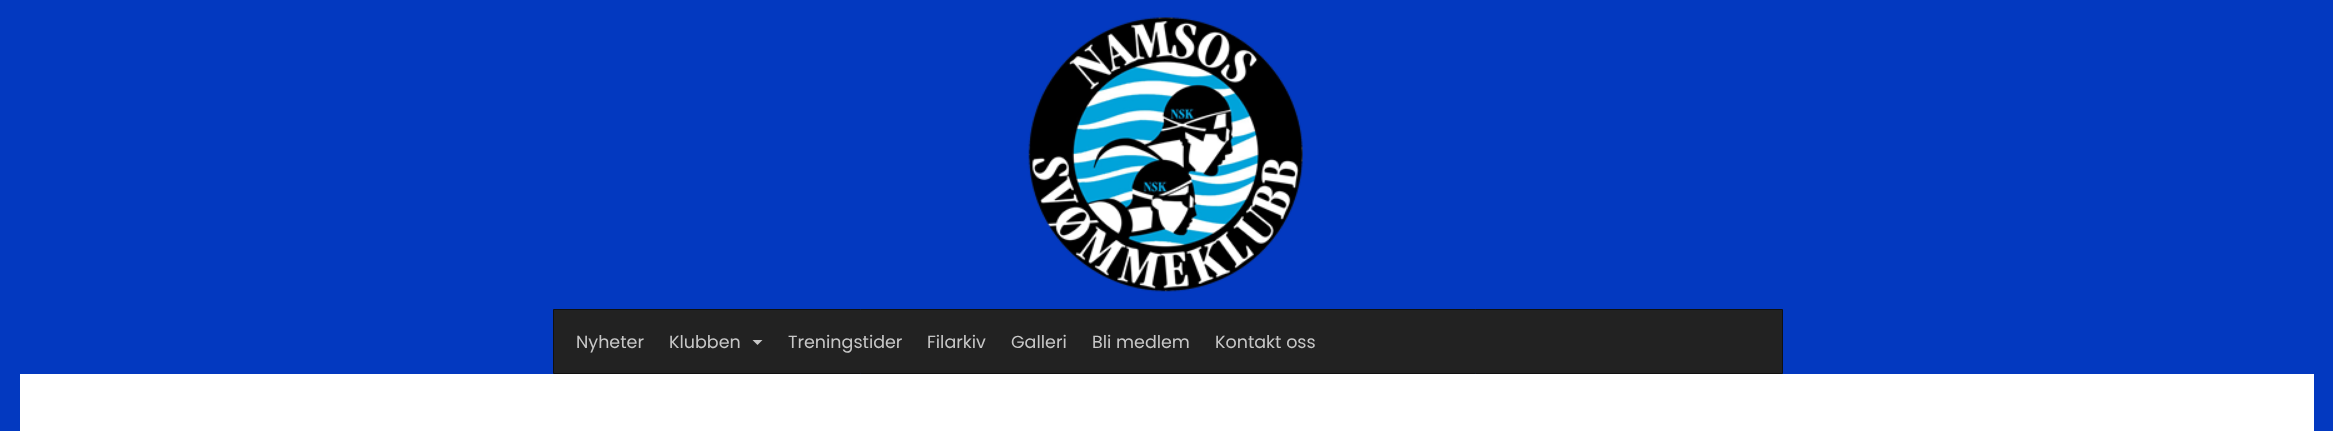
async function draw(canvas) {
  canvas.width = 2333;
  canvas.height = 431;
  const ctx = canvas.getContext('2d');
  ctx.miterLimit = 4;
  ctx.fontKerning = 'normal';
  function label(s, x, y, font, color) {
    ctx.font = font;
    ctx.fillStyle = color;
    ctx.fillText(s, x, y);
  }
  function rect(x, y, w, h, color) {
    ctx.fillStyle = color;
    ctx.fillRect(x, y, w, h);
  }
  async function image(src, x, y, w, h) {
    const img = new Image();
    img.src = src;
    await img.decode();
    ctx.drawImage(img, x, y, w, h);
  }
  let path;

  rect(0, 0, 2333, 431, '#0339c0');
  await image('assets/img1.png', 1028, 17, 275, 275);
  ctx.fillStyle = '#222';
  ctx.beginPath();
  ctx.rect(553.5, 309.5, 1229, 64);
  ctx.fill();
  ctx.strokeStyle = '#101010';
  ctx.stroke();
  label('Nyheter', 576, 348, '17.5px Poppins', '#c7c7c7');
  label('Klubben', 669, 348, '17.5px Poppins', '#c7c7c7');
  path = new Path2D('M752.5 340H762.5L757.5 345Z');
  ctx.fill(path);
  label('Treningstider', 788, 348, '17.5px Poppins', '#c7c7c7');
  label('Filarkiv', 927, 348, '17.5px Poppins', '#c7c7c7');
  label('Galleri', 1011, 348, '17.5px Poppins', '#c7c7c7');
  label('Bli medlem', 1092, 348, '17.5px Poppins', '#c7c7c7');
  label('Kontakt oss', 1215, 348, '17.5px Poppins', '#c7c7c7');
  rect(20, 374, 2294, 57, '#fff');
}

draw(document.querySelector('canvas'));
